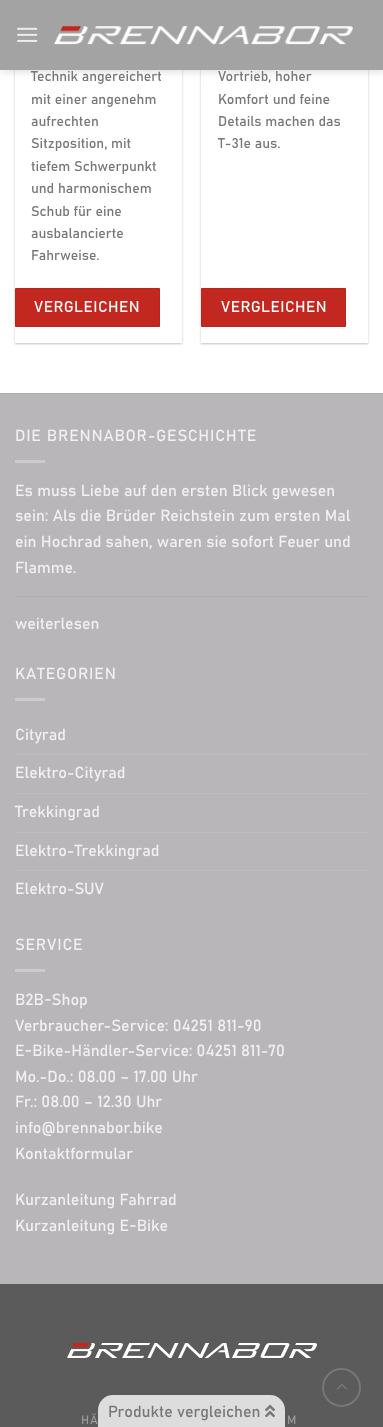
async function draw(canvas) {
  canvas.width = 383;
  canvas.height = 1427;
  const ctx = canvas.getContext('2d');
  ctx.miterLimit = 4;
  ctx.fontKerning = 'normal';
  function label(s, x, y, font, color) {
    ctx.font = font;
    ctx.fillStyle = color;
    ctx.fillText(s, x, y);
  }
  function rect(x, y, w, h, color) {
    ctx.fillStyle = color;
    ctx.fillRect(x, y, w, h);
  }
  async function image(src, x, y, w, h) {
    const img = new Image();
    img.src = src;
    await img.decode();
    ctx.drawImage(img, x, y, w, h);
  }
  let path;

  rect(0, 0, 383, 1427, '#fff');
  ctx.fillStyle = '#00000026';
  ctx.filter = 'blur(5px)';
  ctx.beginPath();
  ctx.rect(1, 1, 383, 70);
  ctx.fill();
  ctx.filter = 'none';
  ctx.save();
  path = new Path2D('M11 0H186V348H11ZM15-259H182V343H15Z');
  ctx.clip(path, 'evenodd');
  ctx.fillStyle = '#0000003d';
  ctx.filter = 'blur(1px)';
  ctx.beginPath();
  ctx.rect(15, -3, 167, 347);
  ctx.fill();
  ctx.filter = 'none';
  ctx.restore();
  ctx.save();
  path = new Path2D('M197 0H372V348H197ZM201-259H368V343H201Z');
  ctx.clip(path, 'evenodd');
  ctx.fillStyle = '#0000003d';
  ctx.filter = 'blur(1px)';
  ctx.beginPath();
  ctx.rect(201, -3, 167, 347);
  ctx.fill();
  ctx.filter = 'none';
  ctx.restore();
  rect(0, 0, 383, 70, '#a3a3a3');
  await image('assets/img1.png', 17, 27, 21, 15);
  await image('assets/img2.png', 54, 26, 299, 19);
  label('Technik angereichert', 31, 81, '14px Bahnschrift', '#777');
  label('mit einer angenehm', 31, 104, '14px Bahnschrift', '#777');
  label('aufrechten', 31, 126, '14px Bahnschrift', '#777');
  label('Sitzposition, mit', 31, 148, '14px Bahnschrift', '#777');
  label('tiefem Schwerpunkt', 31, 171, '14px Bahnschrift', '#777');
  label('und harmonischem', 31, 193, '14px Bahnschrift', '#777');
  label('Schub für eine', 31, 216, '14px Bahnschrift', '#777');
  label('ausbalancierte', 31, 238, '14px Bahnschrift', '#777');
  label('Fahrweise.', 31, 260, '14px Bahnschrift', '#777');
  ctx.fillStyle = '#c22820';
  ctx.beginPath();
  ctx.rect(15.5, 288.5, 144, 38);
  ctx.fill();
  ctx.strokeStyle = '#b8261e';
  ctx.stroke();
  ctx.letterSpacing = '0.5px';
  label('VERGLEICHEN', 34, 312, '15.5px Bahnschrift', '#fff');
  ctx.letterSpacing = '0px';
  label('Vortrieb, hoher', 218, 81, '14px Bahnschrift', '#777');
  label('Komfort und feine', 218, 104, '14px Bahnschrift', '#777');
  label('Details machen das', 218, 126, '14px Bahnschrift', '#777');
  label('T-31e aus.', 218, 148, '14px Bahnschrift', '#777');
  ctx.fillStyle = '#c22820';
  ctx.beginPath();
  ctx.rect(201.5, 288.5, 144, 38);
  ctx.fill();
  ctx.stroke();
  ctx.letterSpacing = '0.5px';
  label('VERGLEICHEN', 221, 312, '15.5px Bahnschrift', '#fff');
  rect(0, 394, 383, 890, '#b8b6b8');
  rect(0, 393, 383, 1, '#afadaf');
  ctx.letterSpacing = '0.8px';
  label('DIE BRENNABOR-GESCHICHTE', 15, 441, '16px Bahnschrift', '#f1f1f1');
  rect(15, 460, 30, 3, '#cdcccd');
  ctx.letterSpacing = '0px';
  label('Es muss Liebe auf den ersten Blick gewesen', 15, 496, '16px Bahnschrift', '#f1f1f1');
  label('sein: Als die Brüder Reichstein zum ersten Mal', 15, 521, '16px Bahnschrift', '#f1f1f1');
  label('ein Hochrad sahen, waren sie sofort Feuer und', 15, 547, '16px Bahnschrift', '#f1f1f1');
  label('Flamme.', 15, 573, '16px Bahnschrift', '#f1f1f1');
  rect(15, 596, 353, 1, '#b2b1b2');
  label('weiterlesen', 15, 629, '16px Bahnschrift', '#f1f1f1');
  ctx.letterSpacing = '0.8px';
  label('KATEGORIEN', 15, 679, '16px Bahnschrift', '#f1f1f1');
  rect(15, 698, 30, 3, '#cdcccd');
  ctx.letterSpacing = '0px';
  label('Cityrad', 15, 740, '16px Bahnschrift', '#f1f1f1');
  rect(15, 754, 353, 1, '#bebcbe');
  label('Elektro-Cityrad', 15, 778, '16px Bahnschrift', '#f1f1f1');
  rect(15, 793, 353, 1, '#bebcbe');
  label('Trekkingrad', 15, 817, '16px Bahnschrift', '#f1f1f1');
  rect(15, 832, 353, 1, '#bebcbe');
  label('Elektro-Trekkingrad', 15, 856, '16px Bahnschrift', '#f1f1f1');
  rect(15, 870, 353, 1, '#bebcbe');
  label('Elektro-SUV', 15, 894, '16px Bahnschrift', '#f1f1f1');
  ctx.letterSpacing = '0.8px';
  label('SERVICE', 15, 950, '16px Bahnschrift', '#f1f1f1');
  rect(15, 969, 30, 3, '#cdcccd');
  ctx.letterSpacing = '0px';
  label('B2B-Shop', 15, 1005, '16px Bahnschrift', '#f1f1f1');
  label('Verbraucher-Service: 04251 811-90', 15, 1031, '16px Bahnschrift', '#f1f1f1');
  label('E-Bike-Händler-Service: 04251 811-70', 15, 1056, '16px Bahnschrift', '#f1f1f1');
  label('Mo.-Do.: 08.00 – 17.00 Uhr', 15, 1082, '16px Bahnschrift', '#f1f1f1');
  label('Fr.: 08.00 – 12.30 Uhr', 15, 1107, '16px Bahnschrift', '#f1f1f1');
  label('info@brennabor.bike', 15, 1133, '16px Bahnschrift', '#f1f1f1');
  label('Kontaktformular', 15, 1159, '16px Bahnschrift', '#f1f1f1');
  label('Kurzanleitung Fahrrad', 15, 1205, '16px Bahnschrift', '#f1f1f1');
  label('Kurzanleitung E-Bike', 15, 1231, '16px Bahnschrift', '#f1f1f1');
  rect(0, 1284, 383, 143, '#5b5b5b');
  ctx.beginPath();
  ctx.arc(341.5, 1387.5, 18.5, 0, 2 * Math.PI);
  ctx.strokeStyle = '#777';
  ctx.lineWidth = 2;
  ctx.stroke();
  await image('assets/img3.png', 337, 1384, 10, 6);
  await image('assets/img4.png', 67, 1343, 250, 15);
  ctx.letterSpacing = '1px';
  label('HÄ', 81, 1424, '12px Bahnschrift', '#9d9d9d');
  label('M', 287, 1424, '12px Bahnschrift', '#9d9d9d');
  ctx.fillStyle = '#ddd';
  ctx.beginPath();
  ctx.roundRect(98, 1395, 187, 32, [15, 15, 0, 0]);
  ctx.fill();
  ctx.letterSpacing = '0px';
  label('Produkte vergleichen', 108, 1417, '16px Bahnschrift', '#777');
  await image('assets/img5.png', 265, 1404, 10, 14);
}

draw(document.querySelector('canvas'));
